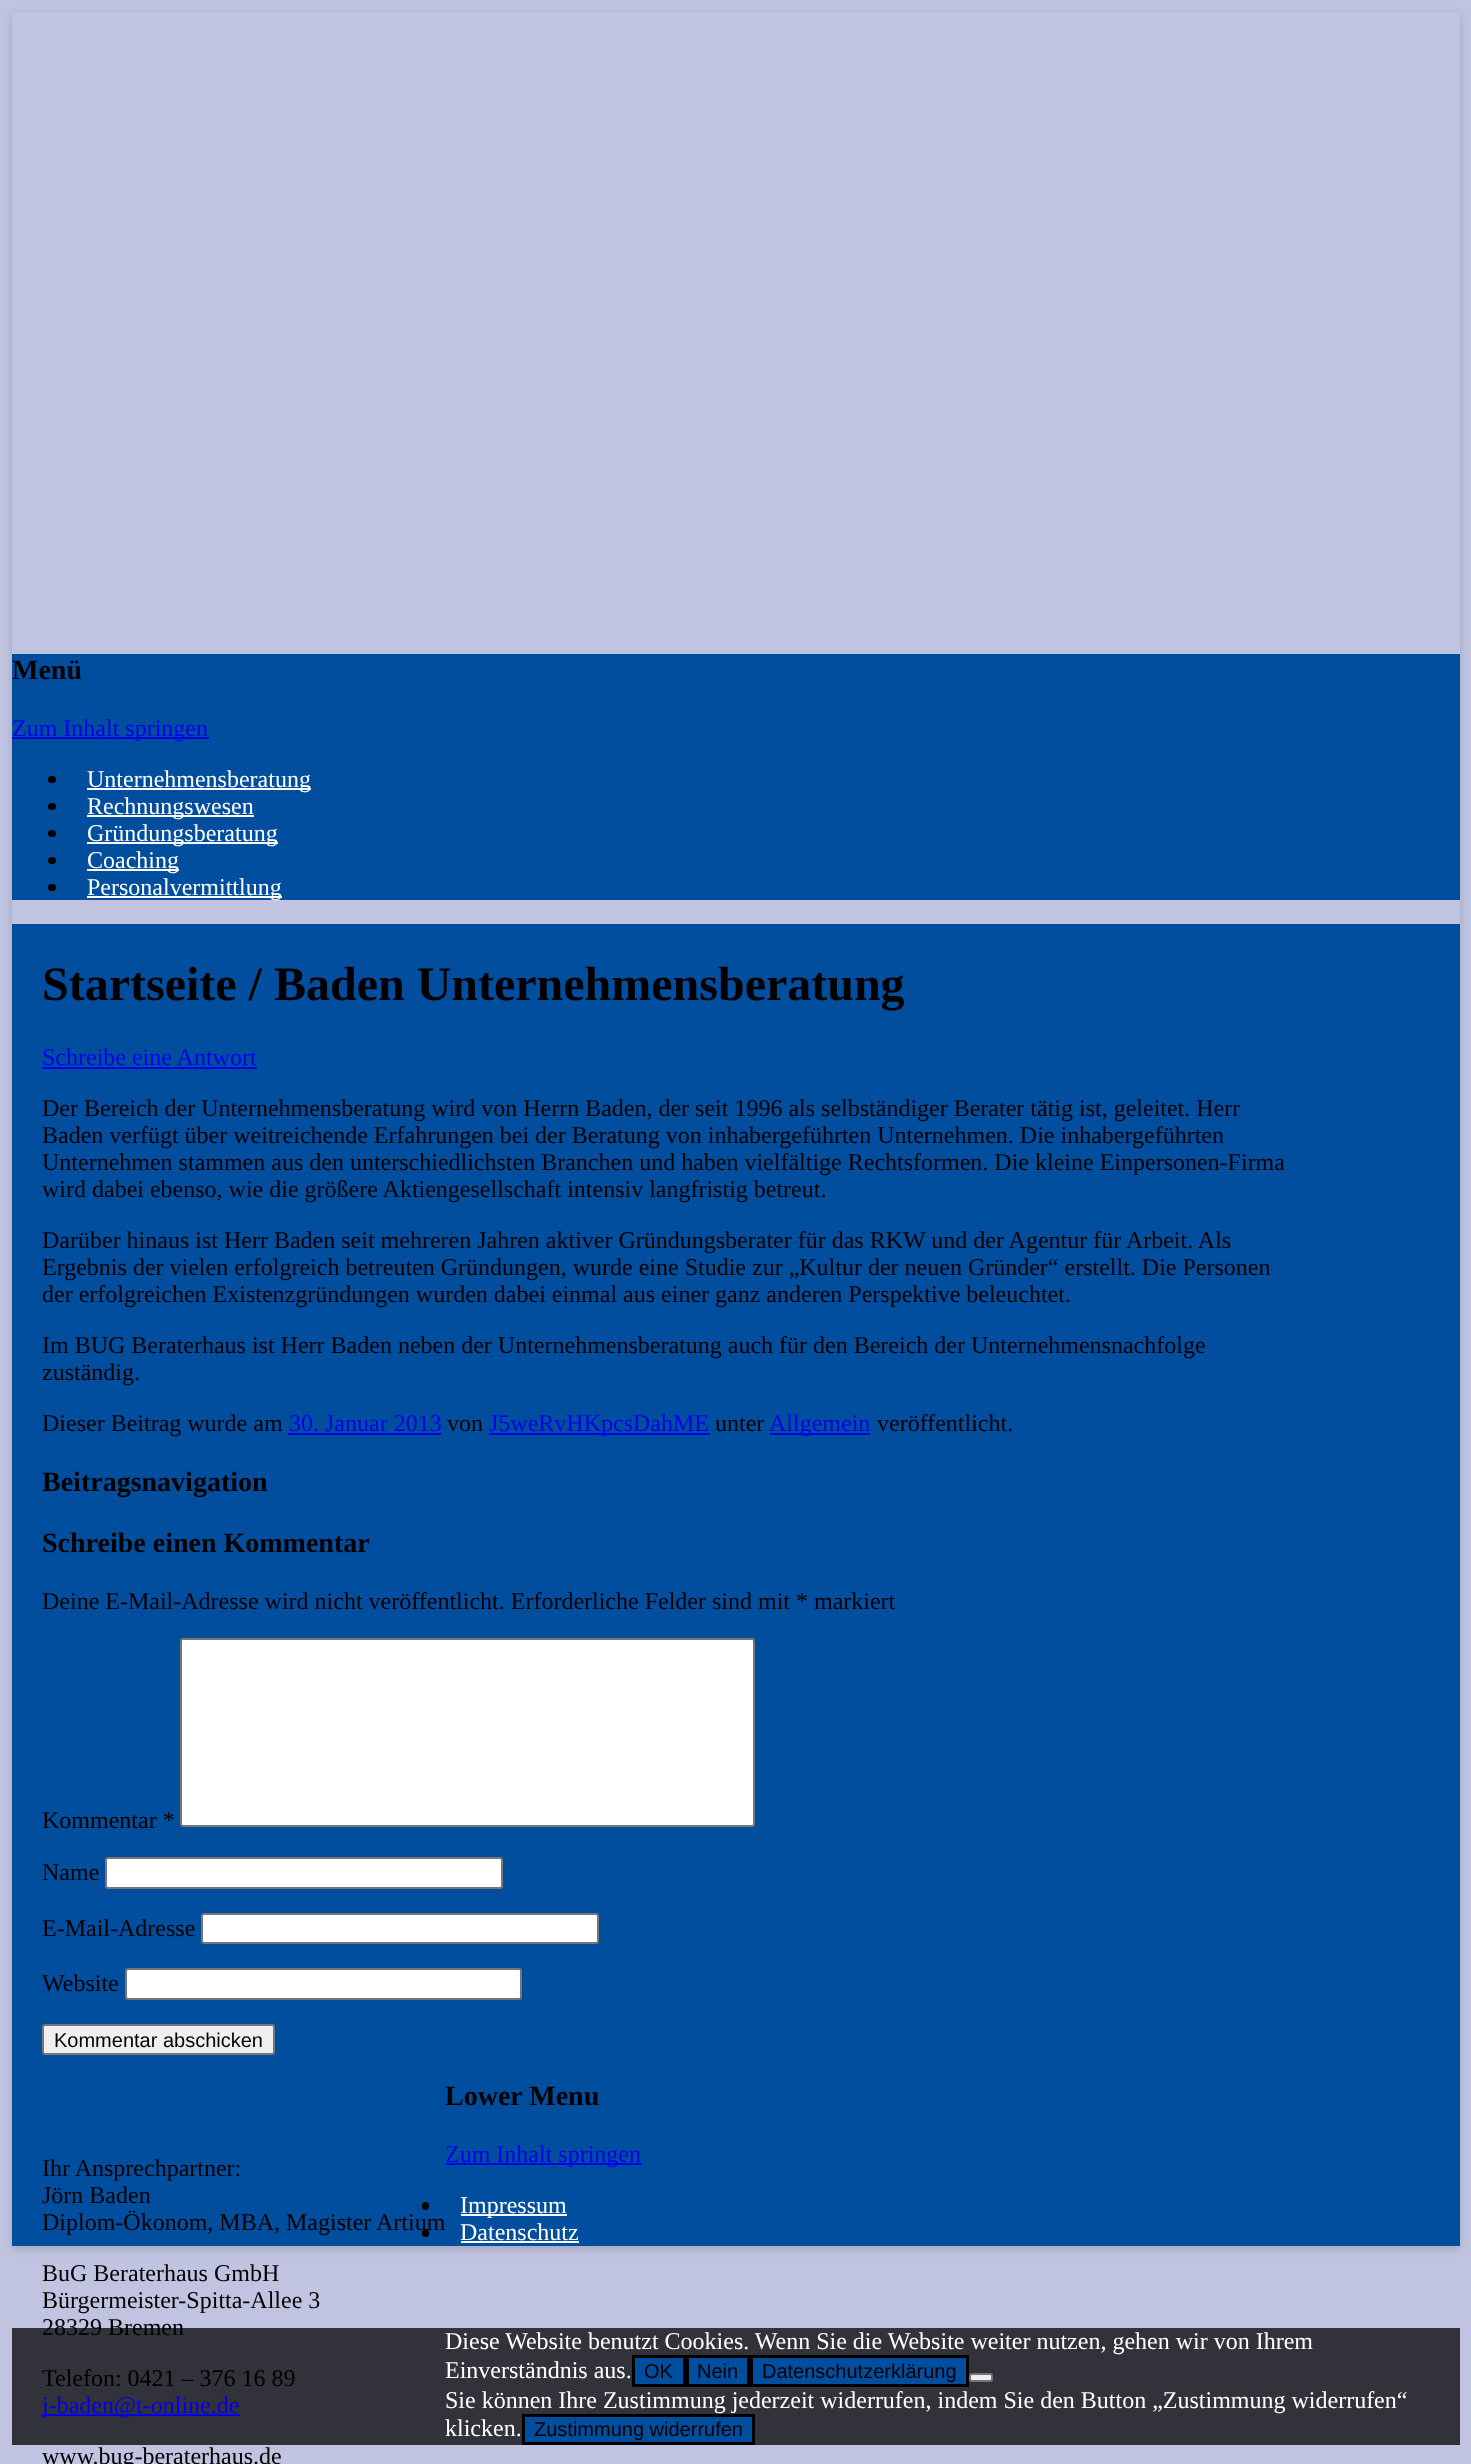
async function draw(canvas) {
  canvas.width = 1471;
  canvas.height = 2464;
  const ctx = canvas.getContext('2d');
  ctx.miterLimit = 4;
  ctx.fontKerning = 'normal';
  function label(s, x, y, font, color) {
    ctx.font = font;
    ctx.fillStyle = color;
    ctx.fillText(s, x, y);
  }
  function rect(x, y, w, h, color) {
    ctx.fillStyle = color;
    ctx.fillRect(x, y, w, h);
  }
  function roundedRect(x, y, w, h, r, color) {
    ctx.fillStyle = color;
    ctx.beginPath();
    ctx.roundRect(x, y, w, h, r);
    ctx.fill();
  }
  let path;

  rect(0, 0, 1471, 2464, '#c0c4e1');
  ctx.save();
  path = new Path2D('M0 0H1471V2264H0ZM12 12H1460V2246H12Z');
  ctx.clip(path, 'evenodd');
  ctx.fillStyle = '#6464644d';
  ctx.filter = 'blur(4.5px)';
  ctx.beginPath();
  ctx.rect(12, 15, 1448, 2234);
  ctx.fill();
  ctx.filter = 'none';
  ctx.restore();
  rect(12, 654, 1448, 246, '#014e9e');
  label('Menü', 12, 679, 'bold 28px Liberation Serif', '#000');
  rect(12, 737, 197, 2, '#00e');
  label('Zum Inhalt springen', 12, 736, '24px Liberation Serif', '#00e');
  roundedRect(48, 776, 8, 7, 3.5, '#000');
  rect(87, 788, 224, 2, '#fff');
  label('Unternehmensberatung', 87, 787, '24px Liberation Serif', '#fff');
  roundedRect(48, 803, 8, 7, 3.5, '#000');
  rect(87, 815, 167, 2, '#fff');
  label('Rechnungswesen', 87, 814, '24px Liberation Serif', '#fff');
  roundedRect(48, 830, 8, 7, 3.5, '#000');
  rect(87, 842, 191, 2, '#fff');
  label('Gründungsberatung', 87, 841, '24px Liberation Serif', '#fff');
  roundedRect(48, 857, 8, 7, 3.5, '#000');
  rect(87, 869, 92, 2, '#fff');
  label('Coaching', 87, 868, '24px Liberation Serif', '#fff');
  roundedRect(48, 884, 8, 7, 3.5, '#000');
  rect(87, 896, 195, 2, '#fff');
  label('Personalvermittlung', 87, 895, '24px Liberation Serif', '#fff');
  rect(12, 924, 1448, 1322, '#014e9e');
  label('Startseite / Baden Unternehmensberatung', 42, 1000, 'bold 48px Liberation Serif', '#000');
  label('Schreibe eine Antwort', 42, 1065, '24px Liberation Serif', '#00e');
  rect(42, 1067, 215, 2, '#00e');
  label('Der Bereich der Unternehmensberatung wird von Herrn Baden, der seit 1996 als selbständiger Berater tätig ist, geleitet. Herr', 42, 1116, '24px Liberation Serif', '#000');
  label('Baden verfügt über weitreichende Erfahrungen bei der Beratung von inhabergeführten Unternehmen. Die inhabergeführten', 42, 1143, '24px Liberation Serif', '#000');
  label('Unternehmen stammen aus den unterschiedlichsten Branchen und haben vielfältige Rechtsformen. Die kleine Einpersonen-Firma', 42, 1170, '24px Liberation Serif', '#000');
  label('wird dabei ebenso, wie die größere Aktiengesellschaft intensiv langfristig betreut.', 42, 1197, '24px Liberation Serif', '#000');
  label('Darüber hinaus ist Herr Baden seit mehreren Jahren aktiver Gründungsberater für das RKW und der Agentur für Arbeit. Als', 42, 1248, '24px Liberation Serif', '#000');
  label('Ergebnis der vielen erfolgreich betreuten Gründungen, wurde eine Studie zur „Kultur der neuen Gründer“ erstellt. Die Personen', 42, 1275, '24px Liberation Serif', '#000');
  label('der erfolgreichen Existenzgründungen wurden dabei einmal aus einer ganz anderen Perspektive beleuchtet.', 42, 1302, '24px Liberation Serif', '#000');
  label('Im BUG Beraterhaus ist Herr Baden neben der Unternehmensberatung auch für den Bereich der Unternehmensnachfolge', 42, 1353, '24px Liberation Serif', '#000');
  label('zuständig.', 42, 1380, '24px Liberation Serif', '#000');
  label('Dieser Beitrag wurde am', 42, 1431, '24px Liberation Serif', '#000');
  label('30. Januar 2013', 289, 1431, '24px Liberation Serif', '#00e');
  rect(288, 1433, 153, 2, '#00e');
  label('von', 447, 1431, '24px Liberation Serif', '#000');
  rect(489, 1433, 221, 2, '#00e');
  label('J5weRvHKpcsDahME', 489, 1431, '24px Liberation Serif', '#00e');
  label('unter', 715, 1431, '24px Liberation Serif', '#000');
  rect(770, 1433, 100, 2, '#00e');
  label('Allgemein', 769, 1431, '24px Liberation Serif', '#00e');
  label('veröffentlicht.', 877, 1431, '24px Liberation Serif', '#000');
  label('Beitragsnavigation', 42, 1491, 'bold 28px Liberation Serif', '#000');
  label('Schreibe einen Kommentar', 42, 1552, 'bold 28px Liberation Serif', '#000');
  label('Deine E-Mail-Adresse wird nicht veröffentlicht. Erforderliche Felder sind mit * markiert', 42, 1609, '24px Liberation Serif', '#000');
  label('Kommentar *', 42, 1828, '24px Liberation Serif', '#000');
  ctx.fillStyle = '#fff';
  ctx.beginPath();
  ctx.roundRect(181, 1639, 573, 187, 2);
  ctx.fill();
  ctx.strokeStyle = '#767676';
  ctx.lineWidth = 2;
  ctx.stroke();
  label('Name', 42, 1880, '24px Liberation Serif', '#000');
  ctx.fillStyle = '#fff';
  ctx.beginPath();
  ctx.roundRect(106, 1858, 396, 30, 2);
  ctx.fill();
  ctx.stroke();
  label('E-Mail-Adresse', 42, 1936, '24px Liberation Serif', '#000');
  ctx.fillStyle = '#fff';
  ctx.beginPath();
  ctx.roundRect(202, 1914, 396, 29, 2);
  ctx.fill();
  ctx.stroke();
  label('Website', 42, 1991, '24px Liberation Serif', '#000');
  ctx.fillStyle = '#fff';
  ctx.beginPath();
  ctx.roundRect(126, 1969, 395, 30, 2);
  ctx.fill();
  ctx.stroke();
  ctx.fillStyle = '#efefef';
  ctx.beginPath();
  ctx.roundRect(43, 2025, 231, 29, 2);
  ctx.fill();
  ctx.stroke();
  label('Kommentar abschicken', 54, 2047, '20px Liberation Sans', '#000');
  label('Ihr Ansprechpartner:', 42, 2176, '24px Liberation Serif', '#000');
  label('Jörn Baden', 42, 2203, '24px Liberation Serif', '#000');
  label('Diplom-Ökonom, MBA, Magister Artium', 42, 2230, '24px Liberation Serif', '#000');
  label('BuG Beraterhaus GmbH', 42, 2281, '24px Liberation Serif', '#000');
  label('Bürgermeister-Spitta-Allee 3', 42, 2308, '24px Liberation Serif', '#000');
  rect(12, 2328, 1448, 117, '#32323a');
  label('28329 Bremen', 42, 2335, '24px Liberation Serif', '#000');
  label('Telefon: 0421 – 376 16 89', 42, 2386, '24px Liberation Serif', '#000');
  rect(42, 2414, 198, 2, '#00e');
  label('j-baden@t-online.de', 42, 2413, '24px Liberation Serif', '#00e');
  label('www.bug-beraterhaus.de', 42, 2464, '24px Liberation Serif', '#000');
  label('Lower Menu', 445, 2105, 'bold 28px Liberation Serif', '#000');
  rect(446, 2163, 196, 2, '#00e');
  label('Zum Inhalt springen', 445, 2162, '24px Liberation Serif', '#00e');
  roundedRect(422, 2202, 7, 8, 3.5, '#000');
  rect(461, 2214, 106, 2, '#fff');
  label('Impressum', 460, 2213, '24px Liberation Serif', '#fff');
  roundedRect(422, 2229, 7, 8, 3.5, '#000');
  label('Datenschutz', 460, 2240, '24px Liberation Serif', '#fff');
  rect(461, 2241, 118, 2, '#fff');
  label('Diese Website benutzt Cookies. Wenn Sie die Website weiter nutzen, gehen wir von Ihrem', 445, 2349, '24px Liberation Serif', '#fff');
  label('Einverständnis aus.', 445, 2378, '24px Liberation Serif', '#fff');
  ctx.fillStyle = '#014e9e';
  ctx.beginPath();
  ctx.rect(633.5, 2356.5, 51, 29);
  ctx.fill();
  ctx.strokeStyle = '#000';
  ctx.lineWidth = 3;
  ctx.stroke();
  label('OK', 644, 2378, '20px Liberation Sans', '#000');
  ctx.fillStyle = '#014e9e';
  ctx.beginPath();
  ctx.rect(687.5, 2356.5, 61, 29);
  ctx.fill();
  ctx.stroke();
  label('Nein', 697, 2378, '20px Liberation Sans', '#000');
  ctx.fillStyle = '#014e9e';
  ctx.beginPath();
  ctx.rect(751.5, 2356.5, 216, 29);
  ctx.fill();
  ctx.stroke();
  label('Datenschutzerklärung', 762, 2378, '20px Liberation Sans', '#000');
  ctx.fillStyle = '#efefef';
  ctx.beginPath();
  ctx.roundRect(970, 2374, 22, 7, 2);
  ctx.fill();
  ctx.strokeStyle = '#767676';
  ctx.lineWidth = 2;
  ctx.stroke();
  label('Sie können Ihre Zustimmung jederzeit widerrufen, indem Sie den Button „Zustimmung widerrufen“', 445, 2408, '24px Liberation Serif', '#fff');
  label('klicken.', 445, 2436, '24px Liberation Serif', '#fff');
  ctx.fillStyle = '#014e9e';
  ctx.beginPath();
  ctx.rect(523.5, 2415.5, 230, 28);
  ctx.fill();
  ctx.strokeStyle = '#000';
  ctx.lineWidth = 3;
  ctx.stroke();
  label('Zustimmung widerrufen', 534, 2436, '20px Liberation Sans', '#000');
}

draw(document.querySelector('canvas'));
